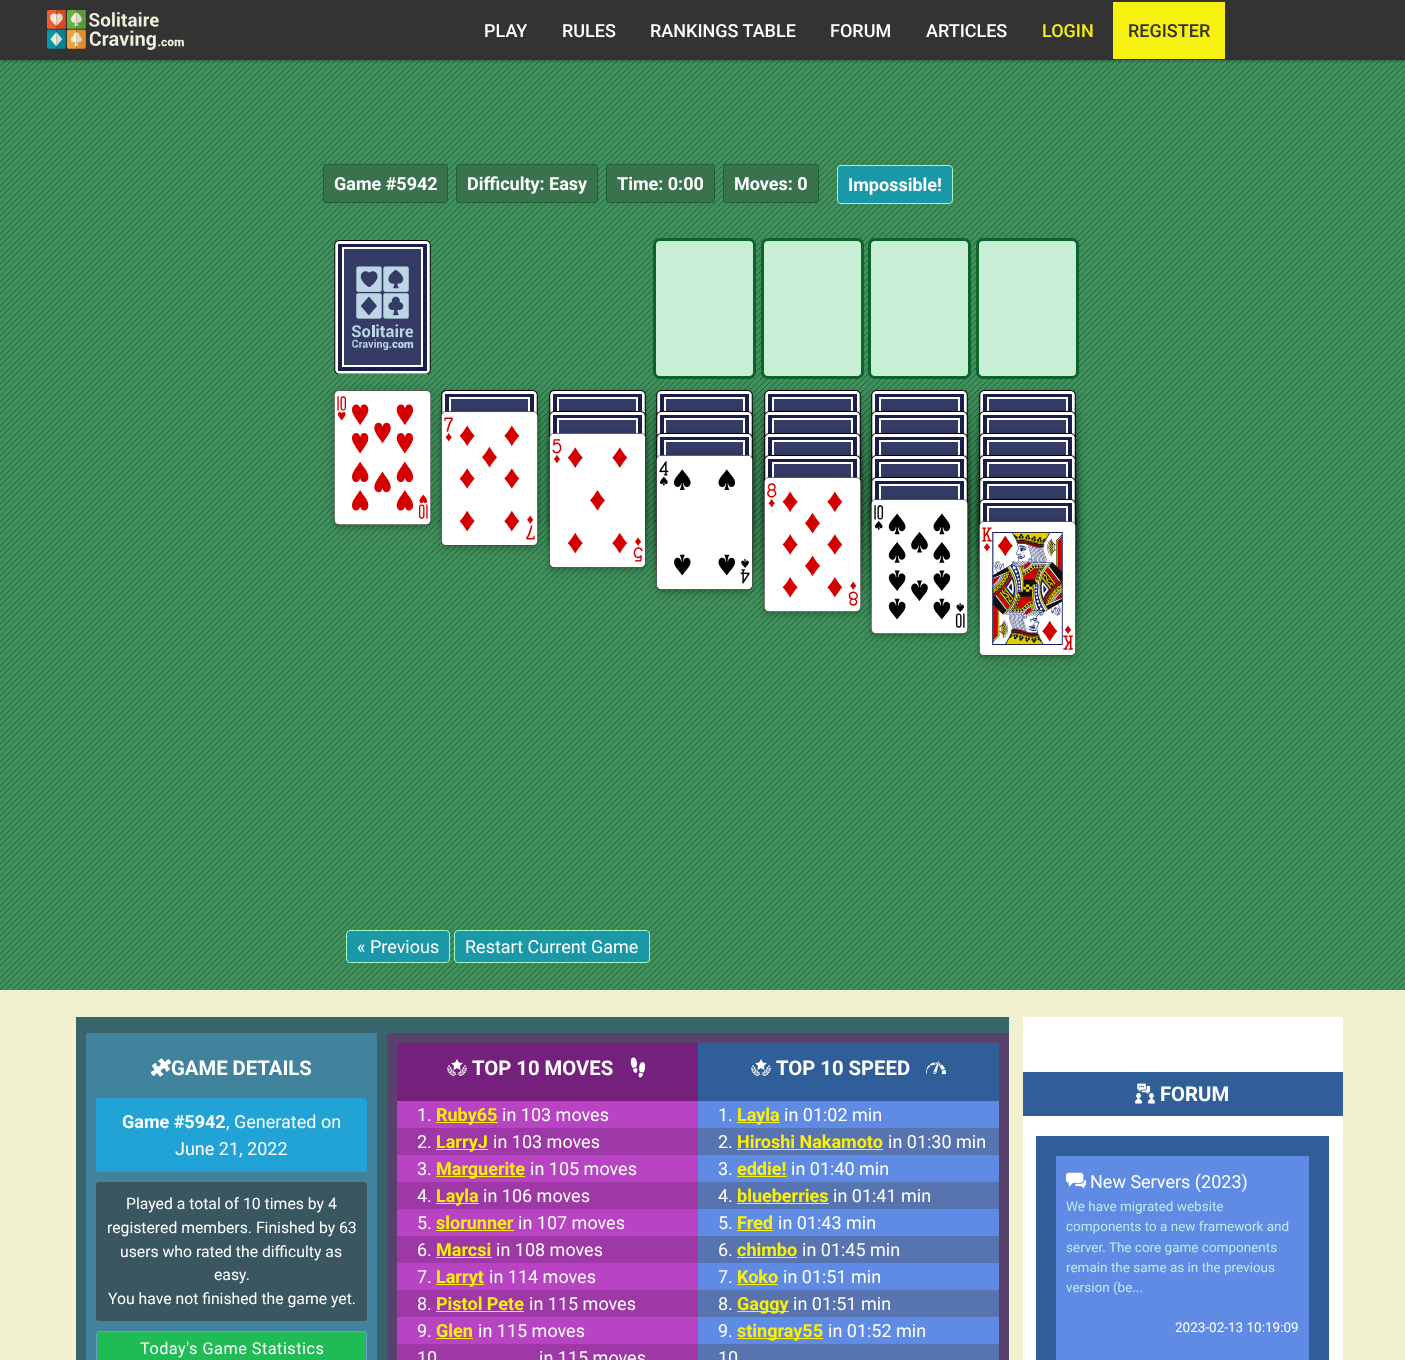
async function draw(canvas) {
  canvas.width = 1405;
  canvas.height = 1360;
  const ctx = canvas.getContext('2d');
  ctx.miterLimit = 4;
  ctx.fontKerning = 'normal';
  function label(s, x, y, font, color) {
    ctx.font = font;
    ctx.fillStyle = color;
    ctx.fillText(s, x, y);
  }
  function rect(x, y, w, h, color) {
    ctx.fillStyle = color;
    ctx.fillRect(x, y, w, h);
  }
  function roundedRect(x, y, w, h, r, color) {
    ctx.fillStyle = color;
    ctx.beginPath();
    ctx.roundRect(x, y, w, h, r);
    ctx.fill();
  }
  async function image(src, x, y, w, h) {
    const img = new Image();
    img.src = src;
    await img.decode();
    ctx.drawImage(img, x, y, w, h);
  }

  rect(0, 0, 1405, 1360, '#f1f1d0');
  await image('assets/img2.png', 0, 60, 1405, 930);
  ctx.fillStyle = '#0000004d';
  ctx.filter = 'blur(1px)';
  ctx.beginPath();
  ctx.rect(0, 1, 1405, 60);
  ctx.fill();
  ctx.filter = 'none';
  rect(0, 0, 1405, 60, '#333');
  await image('assets/img1.png', 47, 10, 137, 40);
  label('PLAY', 484, 37, '500 18px Roboto', '#fff');
  label('RULES', 562, 37, '500 18px Roboto', '#fff');
  label('RANKINGS TABLE', 650, 37, '500 18px Roboto', '#fff');
  label('FORUM', 830, 37, '500 18px Roboto', '#fff');
  label('ARTICLES', 926, 37, '500 18px Roboto', '#fff');
  label('LOGIN', 1042, 37, '500 18px Roboto', '#f7f110');
  rect(1113, 2, 112, 57, '#f7f110');
  label('REGISTER', 1128, 37, '500 18px Roboto', '#333');
  ctx.fillStyle = '#39724d';
  ctx.beginPath();
  ctx.roundRect(323.5, 164.5, 124, 38, 2.5);
  ctx.fill();
  ctx.strokeStyle = '#1b6234';
  ctx.stroke();
  label('Game #5942', 334, 190, 'bold 18px Roboto', '#fff');
  ctx.fillStyle = '#39724d';
  ctx.beginPath();
  ctx.roundRect(456.5, 164.5, 141, 38, 2.5);
  ctx.fill();
  ctx.stroke();
  label('Difficulty: Easy', 467, 190, 'bold 18px Roboto', '#fff');
  ctx.fillStyle = '#39724d';
  ctx.beginPath();
  ctx.roundRect(606.5, 164.5, 108, 38, 2.5);
  ctx.fill();
  ctx.stroke();
  label('Time: 0:00', 617, 190, 'bold 18px Roboto', '#fff');
  ctx.fillStyle = '#39724d';
  ctx.beginPath();
  ctx.roundRect(723.5, 164.5, 95, 38, 2.5);
  ctx.fill();
  ctx.stroke();
  label('Moves: 0', 734, 190, 'bold 18px Roboto', '#fff');
  ctx.fillStyle = '#1a98a7';
  ctx.beginPath();
  ctx.roundRect(837.5, 165.5, 115, 38, 3.5);
  ctx.fill();
  ctx.strokeStyle = '#a1f9be';
  ctx.stroke();
  label('Impossible!', 848, 191, 'bold 18px Roboto', '#fff');
  ctx.fillStyle = '#c8efd5';
  ctx.beginPath();
  ctx.roundRect(654.5, 239.5, 100, 138, 5.5);
  ctx.fill();
  ctx.strokeStyle = '#0b642a';
  ctx.lineWidth = 3;
  ctx.stroke();
  ctx.beginPath();
  ctx.roundRect(762.5, 239.5, 100, 138, 5.5);
  ctx.fill();
  ctx.stroke();
  ctx.beginPath();
  ctx.roundRect(869.5, 239.5, 100, 138, 5.5);
  ctx.fill();
  ctx.stroke();
  ctx.beginPath();
  ctx.roundRect(977.5, 239.5, 100, 138, 5.5);
  ctx.fill();
  ctx.stroke();
  ctx.fillStyle = '#0000001f';
  ctx.filter = 'blur(5px)';
  ctx.beginPath();
  ctx.roundRect(334, 392, 97, 135, 5);
  ctx.fill();
  ctx.filter = 'none';
  ctx.fillStyle = '#00000029';
  ctx.filter = 'blur(2.5px)';
  ctx.beginPath();
  ctx.roundRect(334, 392, 97, 135, 5);
  ctx.fill();
  ctx.filter = 'none';
  await image('assets/img3.png', 334, 390, 97, 135);
  ctx.fillStyle = '#0000001f';
  ctx.filter = 'blur(5px)';
  ctx.beginPath();
  ctx.roundRect(441, 392, 97, 135, 5);
  ctx.fill();
  ctx.filter = 'none';
  ctx.fillStyle = '#00000029';
  ctx.filter = 'blur(2.5px)';
  ctx.beginPath();
  ctx.roundRect(441, 392, 97, 135, 5);
  ctx.fill();
  ctx.filter = 'none';
  await image('assets/img4.png', 441, 390, 97, 132);
  ctx.fillStyle = '#0000001f';
  ctx.filter = 'blur(5px)';
  ctx.beginPath();
  ctx.roundRect(549, 392, 97, 135, 5);
  ctx.fill();
  ctx.filter = 'none';
  ctx.fillStyle = '#00000029';
  ctx.filter = 'blur(2.5px)';
  ctx.beginPath();
  ctx.roundRect(549, 392, 97, 135, 5);
  ctx.fill();
  ctx.filter = 'none';
  await image('assets/img4.png', 549, 390, 97, 132);
  ctx.fillStyle = '#0000001f';
  ctx.filter = 'blur(5px)';
  ctx.beginPath();
  ctx.roundRect(656, 392, 97, 135, 5);
  ctx.fill();
  ctx.filter = 'none';
  ctx.fillStyle = '#00000029';
  ctx.filter = 'blur(2.5px)';
  ctx.beginPath();
  ctx.roundRect(656, 392, 97, 135, 5);
  ctx.fill();
  ctx.filter = 'none';
  await image('assets/img5.png', 656, 390, 97, 132);
  ctx.fillStyle = '#0000001f';
  ctx.filter = 'blur(5px)';
  ctx.beginPath();
  ctx.roundRect(764, 392, 97, 135, 5);
  ctx.fill();
  ctx.filter = 'none';
  ctx.fillStyle = '#00000029';
  ctx.filter = 'blur(2.5px)';
  ctx.beginPath();
  ctx.roundRect(764, 392, 97, 135, 5);
  ctx.fill();
  ctx.filter = 'none';
  await image('assets/img5.png', 764, 390, 97, 132);
  ctx.fillStyle = '#0000001f';
  ctx.filter = 'blur(5px)';
  ctx.beginPath();
  ctx.roundRect(871, 392, 97, 135, 5);
  ctx.fill();
  ctx.filter = 'none';
  ctx.fillStyle = '#00000029';
  ctx.filter = 'blur(2.5px)';
  ctx.beginPath();
  ctx.roundRect(871, 392, 97, 135, 5);
  ctx.fill();
  ctx.filter = 'none';
  await image('assets/img6.png', 871, 390, 97, 132);
  ctx.fillStyle = '#0000001f';
  ctx.filter = 'blur(5px)';
  ctx.beginPath();
  ctx.roundRect(979, 392, 97, 135, 5);
  ctx.fill();
  ctx.filter = 'none';
  ctx.fillStyle = '#00000029';
  ctx.filter = 'blur(2.5px)';
  ctx.beginPath();
  ctx.roundRect(979, 392, 97, 135, 5);
  ctx.fill();
  ctx.filter = 'none';
  await image('assets/img6.png', 979, 390, 97, 132);
  ctx.fillStyle = '#0000001f';
  ctx.filter = 'blur(5px)';
  ctx.beginPath();
  ctx.roundRect(441, 413, 97, 135, 5);
  ctx.fill();
  ctx.filter = 'none';
  ctx.fillStyle = '#00000029';
  ctx.filter = 'blur(2.5px)';
  ctx.beginPath();
  ctx.roundRect(441, 413, 97, 135, 5);
  ctx.fill();
  ctx.filter = 'none';
  await image('assets/img7.png', 441, 411, 97, 135);
  ctx.fillStyle = '#0000001f';
  ctx.filter = 'blur(5px)';
  ctx.beginPath();
  ctx.roundRect(549, 413, 97, 135, 5);
  ctx.fill();
  ctx.filter = 'none';
  ctx.fillStyle = '#00000029';
  ctx.filter = 'blur(2.5px)';
  ctx.beginPath();
  ctx.roundRect(549, 413, 97, 135, 5);
  ctx.fill();
  ctx.filter = 'none';
  await image('assets/img8.png', 549, 411, 97, 132);
  ctx.fillStyle = '#0000001f';
  ctx.filter = 'blur(5px)';
  ctx.beginPath();
  ctx.roundRect(656, 413, 97, 135, 5);
  ctx.fill();
  ctx.filter = 'none';
  ctx.fillStyle = '#00000029';
  ctx.filter = 'blur(2.5px)';
  ctx.beginPath();
  ctx.roundRect(656, 413, 97, 135, 5);
  ctx.fill();
  ctx.filter = 'none';
  await image('assets/img9.png', 656, 411, 97, 132);
  ctx.fillStyle = '#0000001f';
  ctx.filter = 'blur(5px)';
  ctx.beginPath();
  ctx.roundRect(764, 413, 97, 135, 5);
  ctx.fill();
  ctx.filter = 'none';
  ctx.fillStyle = '#00000029';
  ctx.filter = 'blur(2.5px)';
  ctx.beginPath();
  ctx.roundRect(764, 413, 97, 135, 5);
  ctx.fill();
  ctx.filter = 'none';
  await image('assets/img10.png', 764, 411, 97, 132);
  ctx.fillStyle = '#0000001f';
  ctx.filter = 'blur(5px)';
  ctx.beginPath();
  ctx.roundRect(871, 413, 97, 135, 5);
  ctx.fill();
  ctx.filter = 'none';
  ctx.fillStyle = '#00000029';
  ctx.filter = 'blur(2.5px)';
  ctx.beginPath();
  ctx.roundRect(871, 413, 97, 135, 5);
  ctx.fill();
  ctx.filter = 'none';
  await image('assets/img11.png', 871, 411, 97, 132);
  ctx.fillStyle = '#0000001f';
  ctx.filter = 'blur(5px)';
  ctx.beginPath();
  ctx.roundRect(979, 413, 97, 135, 5);
  ctx.fill();
  ctx.filter = 'none';
  ctx.fillStyle = '#00000029';
  ctx.filter = 'blur(2.5px)';
  ctx.beginPath();
  ctx.roundRect(979, 413, 97, 135, 5);
  ctx.fill();
  ctx.filter = 'none';
  await image('assets/img12.png', 979, 411, 97, 132);
  ctx.fillStyle = '#0000001f';
  ctx.filter = 'blur(5px)';
  ctx.beginPath();
  ctx.roundRect(549, 435, 97, 135, 5);
  ctx.fill();
  ctx.filter = 'none';
  ctx.fillStyle = '#00000029';
  ctx.filter = 'blur(2.5px)';
  ctx.beginPath();
  ctx.roundRect(549, 435, 97, 135, 5);
  ctx.fill();
  ctx.filter = 'none';
  await image('assets/img13.png', 549, 433, 97, 135);
  ctx.fillStyle = '#0000001f';
  ctx.filter = 'blur(5px)';
  ctx.beginPath();
  ctx.roundRect(656, 435, 97, 135, 5);
  ctx.fill();
  ctx.filter = 'none';
  ctx.fillStyle = '#00000029';
  ctx.filter = 'blur(2.5px)';
  ctx.beginPath();
  ctx.roundRect(656, 435, 97, 135, 5);
  ctx.fill();
  ctx.filter = 'none';
  await image('assets/img14.png', 656, 433, 97, 132);
  ctx.fillStyle = '#0000001f';
  ctx.filter = 'blur(5px)';
  ctx.beginPath();
  ctx.roundRect(764, 435, 97, 135, 5);
  ctx.fill();
  ctx.filter = 'none';
  ctx.fillStyle = '#00000029';
  ctx.filter = 'blur(2.5px)';
  ctx.beginPath();
  ctx.roundRect(764, 435, 97, 135, 5);
  ctx.fill();
  ctx.filter = 'none';
  await image('assets/img15.png', 764, 433, 97, 132);
  ctx.fillStyle = '#0000001f';
  ctx.filter = 'blur(5px)';
  ctx.beginPath();
  ctx.roundRect(871, 435, 97, 135, 5);
  ctx.fill();
  ctx.filter = 'none';
  ctx.fillStyle = '#00000029';
  ctx.filter = 'blur(2.5px)';
  ctx.beginPath();
  ctx.roundRect(871, 435, 97, 135, 5);
  ctx.fill();
  ctx.filter = 'none';
  await image('assets/img16.png', 871, 433, 97, 132);
  ctx.fillStyle = '#0000001f';
  ctx.filter = 'blur(5px)';
  ctx.beginPath();
  ctx.roundRect(979, 435, 97, 135, 5);
  ctx.fill();
  ctx.filter = 'none';
  ctx.fillStyle = '#00000029';
  ctx.filter = 'blur(2.5px)';
  ctx.beginPath();
  ctx.roundRect(979, 435, 97, 135, 5);
  ctx.fill();
  ctx.filter = 'none';
  await image('assets/img17.png', 979, 433, 97, 132);
  ctx.fillStyle = '#0000001f';
  ctx.filter = 'blur(5px)';
  ctx.beginPath();
  ctx.roundRect(656, 457, 97, 135, 5);
  ctx.fill();
  ctx.filter = 'none';
  ctx.fillStyle = '#00000029';
  ctx.filter = 'blur(2.5px)';
  ctx.beginPath();
  ctx.roundRect(656, 457, 97, 135, 5);
  ctx.fill();
  ctx.filter = 'none';
  await image('assets/img18.png', 656, 455, 97, 135);
  ctx.fillStyle = '#0000001f';
  ctx.filter = 'blur(5px)';
  ctx.beginPath();
  ctx.roundRect(764, 457, 97, 135, 5);
  ctx.fill();
  ctx.filter = 'none';
  ctx.fillStyle = '#00000029';
  ctx.filter = 'blur(2.5px)';
  ctx.beginPath();
  ctx.roundRect(764, 457, 97, 135, 5);
  ctx.fill();
  ctx.filter = 'none';
  await image('assets/img19.png', 764, 455, 97, 132);
  ctx.fillStyle = '#0000001f';
  ctx.filter = 'blur(5px)';
  ctx.beginPath();
  ctx.roundRect(871, 457, 97, 135, 5);
  ctx.fill();
  ctx.filter = 'none';
  ctx.fillStyle = '#00000029';
  ctx.filter = 'blur(2.5px)';
  ctx.beginPath();
  ctx.roundRect(871, 457, 97, 135, 5);
  ctx.fill();
  ctx.filter = 'none';
  await image('assets/img20.png', 871, 455, 97, 132);
  ctx.fillStyle = '#0000001f';
  ctx.filter = 'blur(5px)';
  ctx.beginPath();
  ctx.roundRect(979, 457, 97, 135, 5);
  ctx.fill();
  ctx.filter = 'none';
  ctx.fillStyle = '#00000029';
  ctx.filter = 'blur(2.5px)';
  ctx.beginPath();
  ctx.roundRect(979, 457, 97, 135, 5);
  ctx.fill();
  ctx.filter = 'none';
  await image('assets/img21.png', 979, 455, 97, 132);
  ctx.fillStyle = '#0000001f';
  ctx.filter = 'blur(5px)';
  ctx.beginPath();
  ctx.roundRect(764, 479, 97, 135, 5);
  ctx.fill();
  ctx.filter = 'none';
  ctx.fillStyle = '#00000029';
  ctx.filter = 'blur(2.5px)';
  ctx.beginPath();
  ctx.roundRect(764, 479, 97, 135, 5);
  ctx.fill();
  ctx.filter = 'none';
  await image('assets/img22.png', 764, 477, 97, 135);
  ctx.fillStyle = '#0000001f';
  ctx.filter = 'blur(5px)';
  ctx.beginPath();
  ctx.roundRect(871, 479, 97, 135, 5);
  ctx.fill();
  ctx.filter = 'none';
  ctx.fillStyle = '#00000029';
  ctx.filter = 'blur(2.5px)';
  ctx.beginPath();
  ctx.roundRect(871, 479, 97, 135, 5);
  ctx.fill();
  ctx.filter = 'none';
  await image('assets/img23.png', 871, 477, 97, 132);
  ctx.fillStyle = '#0000001f';
  ctx.filter = 'blur(5px)';
  ctx.beginPath();
  ctx.roundRect(979, 479, 97, 135, 5);
  ctx.fill();
  ctx.filter = 'none';
  ctx.fillStyle = '#00000029';
  ctx.filter = 'blur(2.5px)';
  ctx.beginPath();
  ctx.roundRect(979, 479, 97, 135, 5);
  ctx.fill();
  ctx.filter = 'none';
  await image('assets/img24.png', 979, 477, 97, 132);
  ctx.fillStyle = '#0000001f';
  ctx.filter = 'blur(5px)';
  ctx.beginPath();
  ctx.roundRect(871, 501, 97, 135, 5);
  ctx.fill();
  ctx.filter = 'none';
  ctx.fillStyle = '#00000029';
  ctx.filter = 'blur(2.5px)';
  ctx.beginPath();
  ctx.roundRect(871, 501, 97, 135, 5);
  ctx.fill();
  ctx.filter = 'none';
  await image('assets/img25.png', 871, 499, 97, 135);
  ctx.fillStyle = '#0000001f';
  ctx.filter = 'blur(5px)';
  ctx.beginPath();
  ctx.roundRect(979, 501, 97, 135, 5);
  ctx.fill();
  ctx.filter = 'none';
  ctx.fillStyle = '#00000029';
  ctx.filter = 'blur(2.5px)';
  ctx.beginPath();
  ctx.roundRect(979, 501, 97, 135, 5);
  ctx.fill();
  ctx.filter = 'none';
  await image('assets/img26.png', 979, 499, 97, 132);
  ctx.fillStyle = '#0000001f';
  ctx.filter = 'blur(5px)';
  ctx.beginPath();
  ctx.roundRect(979, 523, 97, 135, 5);
  ctx.fill();
  ctx.filter = 'none';
  ctx.fillStyle = '#00000029';
  ctx.filter = 'blur(2.5px)';
  ctx.beginPath();
  ctx.roundRect(979, 523, 97, 135, 5);
  ctx.fill();
  ctx.filter = 'none';
  await image('assets/img27.png', 979, 521, 97, 135);
  await image('assets/img28.png', 334, 240, 97, 134);
  ctx.fillStyle = '#1a98a7';
  ctx.beginPath();
  ctx.roundRect(346.5, 930.5, 103, 32, 3.5);
  ctx.fill();
  ctx.strokeStyle = '#a1f9be';
  ctx.lineWidth = 1;
  ctx.stroke();
  label('« Previous', 357, 953, '18px Roboto', '#fff');
  ctx.fillStyle = '#1a98a7';
  ctx.beginPath();
  ctx.roundRect(454.5, 930.5, 195, 32, 3.5);
  ctx.fill();
  ctx.stroke();
  label('Restart Current Game', 465, 953, '18px Roboto', '#fff');
  rect(76, 1017, 933, 343, '#37656b');
  rect(86, 1033, 291, 327, '#41839c');
  await image('assets/img29.png', 151, 1058, 20, 19);
  label('GAME DETAILS', 171, 1075, 'bold 20.25px Roboto', '#fff');
  roundedRect(96, 1098, 271, 74, 3, '#21a4d5');
  label('Game #5942', 122, 1128, 'bold 18px Roboto', '#fff');
  label(', Generated on', 226, 1128, '18px Roboto', '#fff');
  label('June 21, 2022', 175, 1155, '18px Roboto', '#fff');
  roundedRect(96, 1182, 271, 139, 3, '#395661');
  label('Played a total of 10 times by 4', 126, 1209, '15.75px Roboto', '#fff');
  label('registered members. Finished by 63', 107, 1233, '15.75px Roboto', '#fff');
  label('users who rated the difficulty as', 120, 1257, '15.75px Roboto', '#fff');
  label('easy.', 214, 1280, '15.75px Roboto', '#fff');
  label('You have not finished the game yet.', 108, 1304, '15.75px Roboto', '#fff');
  ctx.fillStyle = '#21bb56';
  ctx.beginPath();
  ctx.roundRect(96.5, 1331.5, 270, 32, 2.5);
  ctx.fill();
  ctx.strokeStyle = '#6b9cd9';
  ctx.stroke();
  ctx.letterSpacing = '0.5px';
  label('Today\'s Game Statistics', 140, 1354, '16.25px Roboto', '#fff');
  rect(387, 1033, 622, 327, '#58416d');
  rect(397, 1043, 301, 58, '#75207d');
  await image('assets/img30.png', 447, 1059, 20, 17);
  ctx.letterSpacing = '0px';
  label('TOP 10 MOVES', 472, 1075, 'bold 20.25px Roboto', '#fff');
  await image('assets/img31.png', 630, 1057, 16, 21);
  rect(397, 1101, 301, 27, '#b843c3');
  label('1.', 417, 1121, '18px Roboto', '#fff');
  rect(436, 1122, 62, 1, '#fbf203');
  label('Ruby65', 436, 1121, 'bold 18px Roboto', '#fbf203');
  label('in 103 moves', 502, 1121, '18px Roboto', '#fff');
  rect(397, 1128, 301, 27, '#9e38a7');
  label('2.', 417, 1148, '18px Roboto', '#fff');
  rect(436, 1149, 52, 1, '#fbf203');
  label('LarryJ', 436, 1148, 'bold 18px Roboto', '#fbf203');
  label('in 103 moves', 493, 1148, '18px Roboto', '#fff');
  rect(397, 1155, 301, 27, '#b843c3');
  label('3.', 417, 1175, '18px Roboto', '#fff');
  rect(436, 1176, 89, 1, '#fbf203');
  label('Marguerite', 436, 1175, 'bold 18px Roboto', '#fbf203');
  label('in 105 moves', 530, 1175, '18px Roboto', '#fff');
  rect(397, 1182, 301, 27, '#9e38a7');
  label('4.', 417, 1202, '18px Roboto', '#fff');
  rect(436, 1203, 43, 1, '#fbf203');
  label('Layla', 436, 1202, 'bold 18px Roboto', '#fbf203');
  label('in 106 moves', 483, 1202, '18px Roboto', '#fff');
  rect(397, 1209, 301, 27, '#b843c3');
  label('5.', 417, 1229, '18px Roboto', '#fff');
  label('slorunner', 436, 1229, 'bold 18px Roboto', '#fbf203');
  rect(436, 1230, 78, 1, '#fbf203');
  label('in 107 moves', 518, 1229, '18px Roboto', '#fff');
  rect(397, 1236, 301, 27, '#9e38a7');
  label('6.', 417, 1256, '18px Roboto', '#fff');
  label('Marcsi', 436, 1256, 'bold 18px Roboto', '#fbf203');
  rect(436, 1257, 56, 1, '#fbf203');
  label('in 108 moves', 496, 1256, '18px Roboto', '#fff');
  rect(397, 1263, 301, 27, '#b843c3');
  label('7.', 417, 1283, '18px Roboto', '#fff');
  rect(436, 1284, 48, 1, '#fbf203');
  label('Larryt', 436, 1283, 'bold 18px Roboto', '#fbf203');
  label('in 114 moves', 489, 1283, '18px Roboto', '#fff');
  rect(397, 1290, 301, 27, '#9e38a7');
  label('8.', 417, 1310, '18px Roboto', '#fff');
  label('Pistol Pete', 436, 1310, 'bold 18px Roboto', '#fbf203');
  rect(436, 1311, 88, 1, '#fbf203');
  label('in 115 moves', 529, 1310, '18px Roboto', '#fff');
  rect(397, 1317, 301, 27, '#b843c3');
  label('9.', 417, 1337, '18px Roboto', '#fff');
  label('Glen', 436, 1337, 'bold 18px Roboto', '#fbf203');
  rect(436, 1338, 37, 1, '#fbf203');
  label('in 115 moves', 478, 1337, '18px Roboto', '#fff');
  rect(397, 1344, 301, 16, '#9e38a7');
  label('10', 417, 1364, '18px Roboto', '#fff');
  label('in 115 moves', 539, 1364, '18px Roboto', '#fff');
  rect(698, 1043, 301, 58, '#305e98');
  await image('assets/img32.png', 751, 1059, 20, 17);
  label('TOP 10 SPEED', 776, 1075, 'bold 20.25px Roboto', '#fff');
  await image('assets/img33.png', 926, 1061, 20, 14);
  rect(698, 1101, 301, 27, '#5f8be5');
  label('1.', 718, 1121, '18px Roboto', '#fff');
  rect(737, 1122, 43, 1, '#fbf203');
  label('Layla', 737, 1121, 'bold 18px Roboto', '#fbf203');
  label('in 01:02 min', 784, 1121, '18px Roboto', '#fff');
  rect(698, 1128, 301, 27, '#5774b0');
  label('2.', 718, 1148, '18px Roboto', '#fff');
  label('Hiroshi Nakamoto', 737, 1148, 'bold 18px Roboto', '#fbf203');
  rect(737, 1149, 146, 1, '#fbf203');
  label('in 01:30 min', 888, 1148, '18px Roboto', '#fff');
  rect(698, 1155, 301, 27, '#5f8be5');
  label('3.', 718, 1175, '18px Roboto', '#fff');
  label('eddie!', 737, 1175, 'bold 18px Roboto', '#fbf203');
  rect(737, 1176, 50, 1, '#fbf203');
  label('in 01:40 min', 791, 1175, '18px Roboto', '#fff');
  rect(698, 1182, 301, 27, '#5774b0');
  label('4.', 718, 1202, '18px Roboto', '#fff');
  label('blueberries', 737, 1202, 'bold 18px Roboto', '#fbf203');
  rect(737, 1203, 92, 1, '#fbf203');
  label('in 01:41 min', 833, 1202, '18px Roboto', '#fff');
  rect(698, 1209, 301, 27, '#5f8be5');
  label('5.', 718, 1229, '18px Roboto', '#fff');
  label('Fred', 737, 1229, 'bold 18px Roboto', '#fbf203');
  rect(737, 1230, 36, 1, '#fbf203');
  label('in 01:43 min', 778, 1229, '18px Roboto', '#fff');
  rect(698, 1236, 301, 27, '#5774b0');
  label('6.', 718, 1256, '18px Roboto', '#fff');
  label('chimbo', 737, 1256, 'bold 18px Roboto', '#fbf203');
  rect(737, 1257, 60, 1, '#fbf203');
  label('in 01:45 min', 802, 1256, '18px Roboto', '#fff');
  rect(698, 1263, 301, 27, '#5f8be5');
  label('7.', 718, 1283, '18px Roboto', '#fff');
  label('Koko', 737, 1283, 'bold 18px Roboto', '#fbf203');
  rect(737, 1284, 41, 1, '#fbf203');
  label('in 01:51 min', 783, 1283, '18px Roboto', '#fff');
  rect(698, 1290, 301, 27, '#5774b0');
  label('8.', 718, 1310, '18px Roboto', '#fff');
  rect(737, 1311, 52, 1, '#fbf203');
  label('Gaggy', 737, 1310, 'bold 18px Roboto', '#fbf203');
  label('in 01:51 min', 793, 1310, '18px Roboto', '#fff');
  rect(698, 1317, 301, 27, '#5f8be5');
  label('9.', 718, 1337, '18px Roboto', '#fff');
  rect(737, 1338, 86, 1, '#fbf203');
  label('stingray55', 737, 1337, 'bold 18px Roboto', '#fbf203');
  label('in 01:52 min', 828, 1337, '18px Roboto', '#fff');
  rect(698, 1344, 301, 16, '#5774b0');
  label('10', 718, 1364, '18px Roboto', '#fff');
  rect(1023, 1017, 320, 343, '#fff');
  rect(1023, 1072, 320, 44, '#305e98');
  await image('assets/img34.png', 1135, 1083, 20, 21);
  label('FORUM', 1160, 1101, 'bold 20.25px Roboto', '#fff');
  rect(1036, 1136, 293, 224, '#305e98');
  rect(1056, 1156, 253, 204, '#608be4');
  await image('assets/img35.png', 1066, 1172, 20, 17);
  label('New Servers (2023)', 1090, 1188, '18px Roboto', '#fff');
  label('We have migrated website', 1066, 1211, '13.5px Roboto', '#b9ebf1');
  label('components to a new framework and', 1066, 1231, '13.5px Roboto', '#b9ebf1');
  label('server. The core game components', 1066, 1252, '13.5px Roboto', '#b9ebf1');
  label('remain the same as in the previous', 1066, 1272, '13.5px Roboto', '#b9ebf1');
  label('version (be...', 1066, 1292, '13.5px Roboto', '#b9ebf1');
  label('2023-02-13 10:19:09', 1175, 1332, '13.5px Roboto', '#fff');
}

draw(document.querySelector('canvas'));
